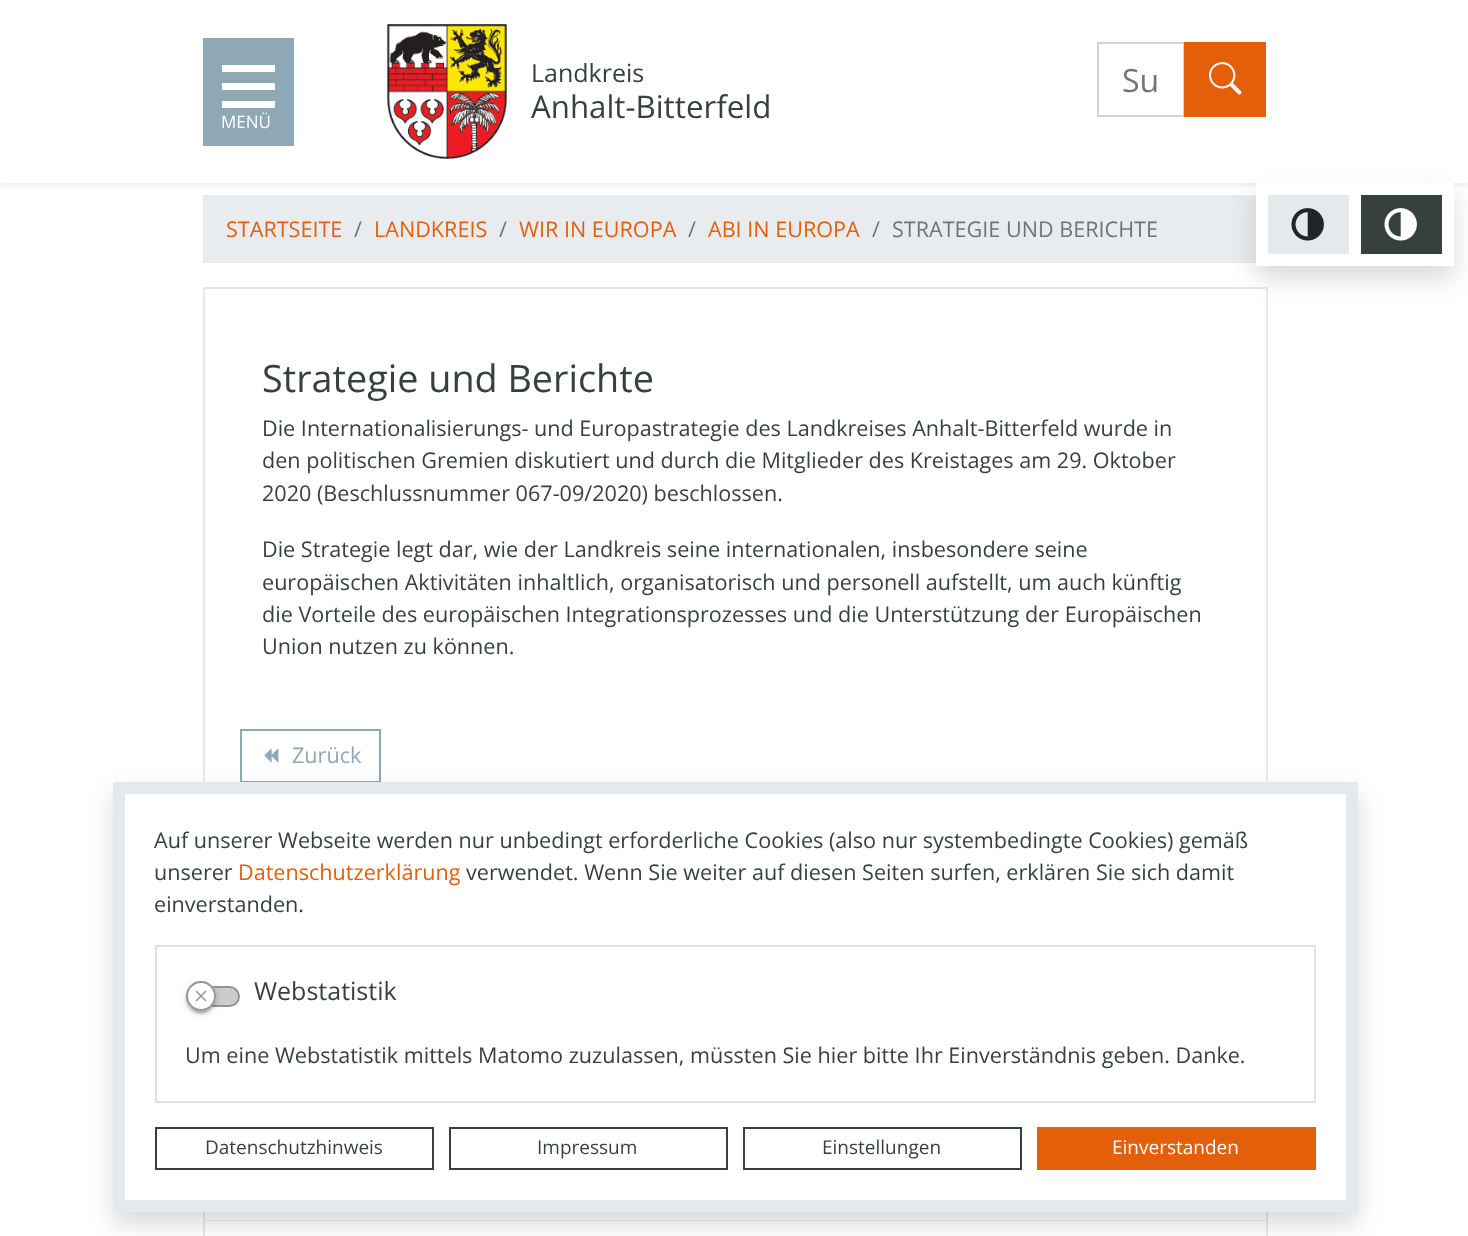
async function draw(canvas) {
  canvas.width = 1468;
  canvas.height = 1236;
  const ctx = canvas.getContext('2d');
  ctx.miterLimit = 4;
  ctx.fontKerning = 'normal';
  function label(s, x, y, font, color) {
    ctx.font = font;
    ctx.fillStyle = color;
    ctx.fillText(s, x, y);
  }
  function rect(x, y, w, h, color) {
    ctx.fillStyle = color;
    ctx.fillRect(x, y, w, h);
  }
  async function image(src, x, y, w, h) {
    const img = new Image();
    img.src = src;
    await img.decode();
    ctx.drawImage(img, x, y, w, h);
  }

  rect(0, 0, 1468, 1236, '#fff');
  ctx.save();
  ctx.beginPath();
  ctx.rect(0, 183, 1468, 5);
  ctx.clip();
  ctx.fillStyle = '#00000012';
  ctx.filter = 'blur(3px)';
  ctx.beginPath();
  ctx.rect(0, 3, 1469, 183);
  ctx.fill();
  ctx.filter = 'none';
  ctx.restore();
  await image('assets/img1.png', 387, 24, 120, 135);
  label('Landkreis', 531, 82, '25px Open Sans', '#36413e');
  label('Anhalt-Bitterfeld', 531, 118, '31.25px Open Sans', '#36413e');
  ctx.strokeStyle = '#ced4da';
  ctx.lineWidth = 2;
  ctx.strokeRect(1098, 43, 86, 73);
  label('Su', 1122, 92, '32px Open Sans', '#6c757d');
  rect(1184, 42, 82, 75, '#e45f09');
  await image('assets/img2.png', 1209, 62, 33, 33);
  rect(203, 38, 91, 108, '#8fa8b5');
  rect(222, 65, 53, 7, '#fff');
  rect(222, 83, 53, 7, '#fff');
  rect(222, 101, 53, 7, '#fff');
  label('MENÜ', 221, 128, '17px Open Sans', '#fff');
  rect(203, 195, 1053, 68, '#e9ecef');
  label('STARTSEITE', 226, 237, '21.6px Open Sans', '#e45f09');
  label('/', 354, 237, '21.6px Open Sans', '#6c757d');
  label('LANDKREIS', 374, 237, '21.6px Open Sans', '#e45f09');
  label('/', 499, 237, '21.6px Open Sans', '#6c757d');
  label('WIR IN EUROPA', 519, 237, '21.6px Open Sans', '#e45f09');
  label('/', 688, 237, '21.6px Open Sans', '#6c757d');
  label('ABI IN EUROPA', 708, 237, '21.6px Open Sans', '#e45f09');
  label('/', 872, 237, '21.6px Open Sans', '#6c757d');
  label('STRATEGIE UND BERICHTE', 892, 237, '21.6px Open Sans', '#6c757d');
  ctx.strokeStyle = '#e3e9ed';
  ctx.strokeRect(204, 288, 1063, 532);
  label('Strategie und Berichte', 262, 392, '37.75px Open Sans', '#36413e');
  label('Die Internationalisierungs- und Europastrategie des Landkreises Anhalt-Bitterfeld wurde in', 262, 436, '21.6px Open Sans', '#36413e');
  label('den politischen Gremien diskutiert und durch die Mitglieder des Kreistages am 29. Oktober', 262, 468, '21.6px Open Sans', '#36413e');
  label('2020 (Beschlussnummer 067-09/2020) beschlossen.', 262, 501, '21.6px Open Sans', '#36413e');
  label('Die Strategie legt dar, wie der Landkreis seine internationalen, insbesondere seine', 262, 557, '21.6px Open Sans', '#36413e');
  label('europäischen Aktivitäten inhaltlich, organisatorisch und personell aufstellt, um auch künftig', 262, 590, '21.6px Open Sans', '#36413e');
  label('die Vorteile des europäischen Integrationsprozesses und die Unterstützung der Europäischen', 262, 622, '21.6px Open Sans', '#36413e');
  label('Union nutzen zu können.', 262, 654, '21.6px Open Sans', '#36413e');
  ctx.strokeStyle = '#8fa8b5';
  ctx.strokeRect(241, 730, 139, 52);
  await image('assets/img3.png', 264, 748, 15, 15);
  label('Zurück', 292, 763, '21.6px Open Sans', '#8fa8b5');
  rect(1266, 1212, 2, 24, '#e3e9ed');
  rect(203, 1220, 1065, 1, '#e3e9ed');
  rect(203, 1212, 2, 24, '#e3e9ed');
  ctx.fillStyle = '#00000026';
  ctx.filter = 'blur(12px)';
  ctx.beginPath();
  ctx.rect(1256, 195, 198, 83);
  ctx.fill();
  ctx.filter = 'none';
  rect(1256, 183, 198, 83, '#fff');
  rect(1268, 195, 81, 59, '#e3e9ed');
  await image('assets/img4.png', 1291, 208, 33, 33);
  rect(1361, 195, 81, 59, '#36413e');
  await image('assets/img5.png', 1384, 208, 33, 33);
  ctx.fillStyle = '#00000026';
  ctx.filter = 'blur(12px)';
  ctx.beginPath();
  ctx.rect(113, 794, 1245, 430);
  ctx.fill();
  ctx.filter = 'none';
  ctx.fillStyle = '#fff';
  ctx.beginPath();
  ctx.rect(119, 788, 1233, 418);
  ctx.fill();
  ctx.strokeStyle = '#e3e9ed';
  ctx.lineWidth = 12;
  ctx.stroke();
  label('Auf unserer Webseite werden nur unbedingt erforderliche Cookies (also nur systembedingte Cookies) gemäß', 154, 848, '21.6px Open Sans', '#36413e');
  label('unserer', 154, 880, '21.6px Open Sans', '#36413e');
  label('Datenschutzerklärung', 238, 880, '21.6px Open Sans', '#e45f09');
  label('verwendet. Wenn Sie weiter auf diesen Seiten surfen, erklären Sie sich damit', 466, 880, '21.6px Open Sans', '#36413e');
  label('einverstanden.', 154, 912, '21.6px Open Sans', '#36413e');
  ctx.strokeStyle = '#dee2e6';
  ctx.lineWidth = 2;
  ctx.strokeRect(156, 946, 1159, 156);
  ctx.fillStyle = '#ccc';
  ctx.beginPath();
  ctx.roundRect(187, 987, 52, 19, 9.5);
  ctx.fill();
  ctx.strokeStyle = '#949494';
  ctx.stroke();
  ctx.fillStyle = '#0000001f';
  ctx.filter = 'blur(4px)';
  ctx.beginPath();
  ctx.roundRect(186, 983, 30, 30, 15);
  ctx.fill();
  ctx.filter = 'none';
  ctx.fillStyle = '#00000024';
  ctx.filter = 'blur(1.5px)';
  ctx.beginPath();
  ctx.roundRect(186, 984, 30, 30, 15);
  ctx.fill();
  ctx.filter = 'none';
  ctx.fillStyle = '#00000033';
  ctx.filter = 'blur(1px)';
  ctx.beginPath();
  ctx.roundRect(189, 989, 24, 24, 12);
  ctx.fill();
  ctx.filter = 'none';
  ctx.fillStyle = '#fff';
  ctx.beginPath();
  ctx.arc(201, 996, 15, 0, 2 * Math.PI);
  ctx.fill();
  await image('assets/img6.png', 195, 990, 12, 12);
  ctx.beginPath();
  ctx.arc(201, 996, 14, 0, 2 * Math.PI);
  ctx.stroke();
  label('Webstatistik', 254, 1000, '25px Open Sans', '#36413e');
  label('Um eine Webstatistik mittels Matomo zuzulassen, müssten Sie hier bitte Ihr Einverständnis geben. Danke.', 185, 1063, '21.6px Open Sans', '#36413e');
  ctx.strokeStyle = '#36413e';
  ctx.strokeRect(156, 1128, 277, 41);
  label('Datenschutzhinweis', 205, 1154, '19px Open Sans', '#36413e');
  ctx.strokeRect(450, 1128, 277, 41);
  label('Impressum', 537, 1154, '19px Open Sans', '#36413e');
  ctx.strokeRect(744, 1128, 277, 41);
  label('Einstellungen', 822, 1154, '19px Open Sans', '#36413e');
  rect(1037, 1127, 279, 43, '#e45f09');
  label('Einverstanden', 1112, 1154, '19px Open Sans', '#fff');
}

draw(document.querySelector('canvas'));
